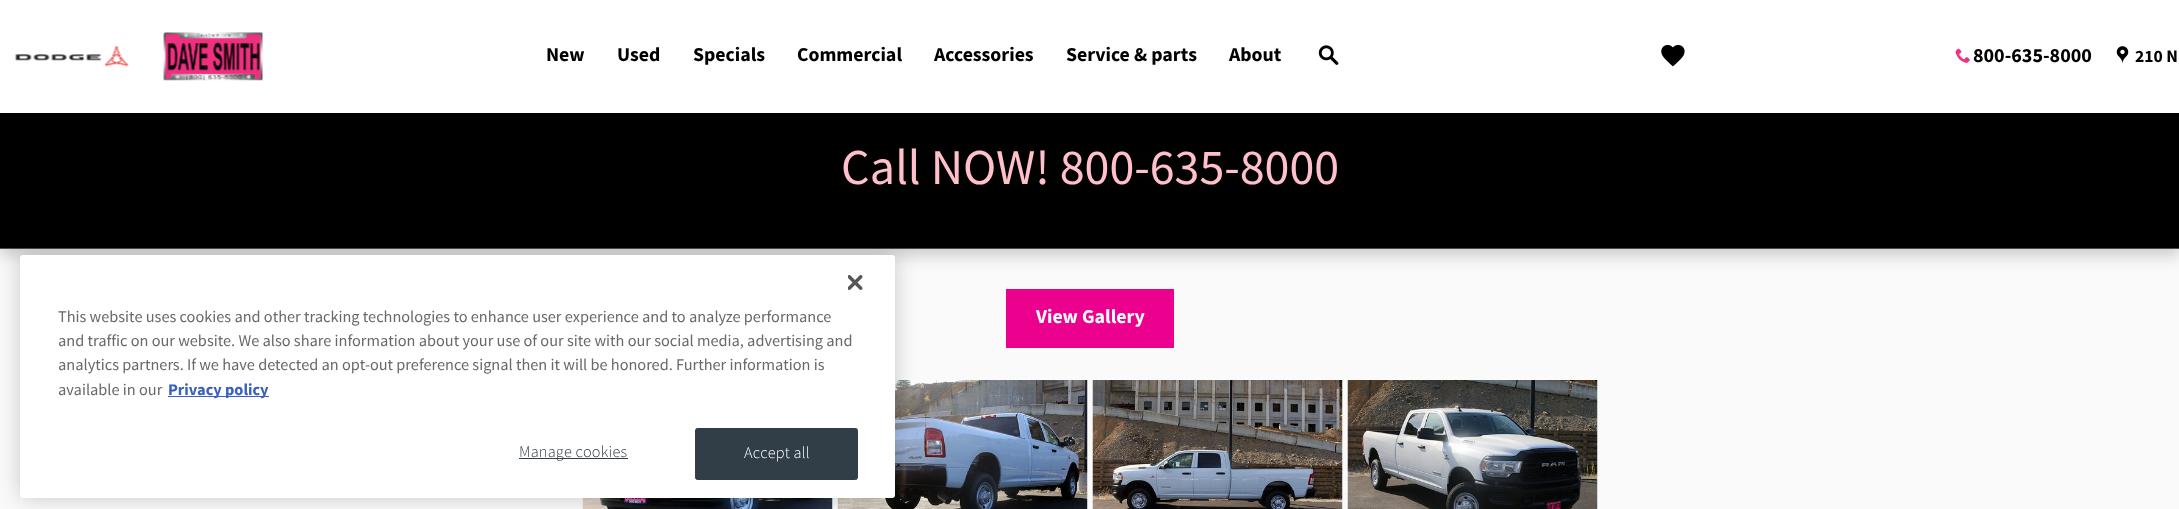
async function draw(canvas) {
  canvas.width = 2179;
  canvas.height = 509;
  const ctx = canvas.getContext('2d');
  ctx.miterLimit = 4;
  ctx.fontKerning = 'normal';
  function label(s, x, y, font, color) {
    ctx.font = font;
    ctx.fillStyle = color;
    ctx.fillText(s, x, y);
  }
  function rect(x, y, w, h, color) {
    ctx.fillStyle = color;
    ctx.fillRect(x, y, w, h);
  }
  function roundedRect(x, y, w, h, r, color) {
    ctx.fillStyle = color;
    ctx.beginPath();
    ctx.roundRect(x, y, w, h, r);
    ctx.fill();
  }
  async function image(src, x, y, w, h) {
    const img = new Image();
    img.src = src;
    await img.decode();
    ctx.drawImage(img, x, y, w, h);
  }

  rect(0, 0, 2179, 509, '#fafafa');
  ctx.fillStyle = '#0000002e';
  ctx.filter = 'blur(7.5px)';
  ctx.beginPath();
  ctx.rect(0, 8, 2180, 248);
  ctx.fill();
  ctx.filter = 'none';
  rect(0, 0, 2179, 113, '#fff');
  rect(0, 248, 2179, 1, '#4b4b4b');
  await image('assets/img1.png', 15, 46, 114, 21);
  await image('assets/img2.png', 163, 32, 100, 49);
  label('New', 546, 61, 'bold 19.75px Source Sans Pro', '#000');
  label('Used', 617, 61, 'bold 19.75px Source Sans Pro', '#000');
  label('Specials', 693, 61, 'bold 19.75px Source Sans Pro', '#000');
  label('Commercial', 797, 61, 'bold 19.75px Source Sans Pro', '#000');
  label('Accessories', 934, 61, 'bold 19.75px Source Sans Pro', '#000');
  label('Service & parts', 1066, 61, 'bold 19.75px Source Sans Pro', '#000');
  label('About', 1229, 61, 'bold 19.75px Source Sans Pro', '#000');
  await image('assets/img3.png', 1318, 45, 21, 20);
  await image('assets/img4.png', 1661, 44, 24, 23);
  await image('assets/img5.png', 1955, 48, 15, 15);
  label('800-635-8000', 1973, 62, 'bold 20px Source Sans Pro', '#000');
  await image('assets/img6.png', 2116, 46, 13, 18);
  label('210 N', 2135, 62, 'bold 17.5px Source Sans Pro', '#000');
  rect(0, 113, 2179, 135, '#000');
  label('Call NOW! 800-635-8000', 841, 184, '50px Source Sans Pro', '#ffc0cb');
  rect(832, 498, 1, 11, '#fff');
  await image('assets/img8.png', 582, 498, 251, 11);
  rect(1087, 380, 1, 129, '#fff');
  await image('assets/img9.png', 837, 380, 251, 129);
  ctx.fillStyle = '#00000033';
  ctx.filter = 'blur(11px)';
  ctx.beginPath();
  ctx.roundRect(20, 255, 875, 243, 3);
  ctx.fill();
  ctx.filter = 'none';
  roundedRect(20, 255, 875, 243, 3, '#fff');
  await image('assets/img7.png', 848, 275, 15, 15);
  label('This website uses cookies and other tracking technologies to enhance user experience and to analyze performance', 58, 322, '16.25px Source Sans Pro', '#696969');
  label('and traffic on our website. We also share information about your use of our site with our social media, advertising and', 58, 346, '16.25px Source Sans Pro', '#696969');
  label('analytics partners. If we have detected an opt-out preference signal then it will be honored. Further information is', 58, 370, '16.25px Source Sans Pro', '#696969');
  label('available in our', 58, 395, '16.25px Source Sans Pro', '#696969');
  rect(168, 396, 101, 1, '#3860be');
  label('Privacy policy', 168, 395, 'bold 16.25px Source Sans Pro', '#3860be');
  rect(519, 458, 109, 1, '#313d47');
  ctx.letterSpacing = '0.2px';
  label('Manage cookies', 519, 457, '300 16.25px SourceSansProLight', '#313d47');
  ctx.beginPath();
  ctx.roundRect(695.5, 428.5, 162, 51, 2);
  ctx.fill();
  ctx.strokeStyle = '#313d47';
  ctx.stroke();
  label('Accept all', 744, 458, '300 16.25px SourceSansProLight', '#fff');
  rect(1006, 289, 168, 59, '#ec008e');
  ctx.letterSpacing = '0px';
  label('View Gallery', 1036, 323, 'bold 19.75px Source Sans Pro', '#fff');
  rect(1342, 380, 1, 129, '#fff');
  await image('assets/img10.png', 1092, 380, 251, 129);
  rect(1597, 380, 1, 129, '#fff');
  await image('assets/img11.png', 1347, 380, 251, 129);
}

draw(document.querySelector('canvas'));
